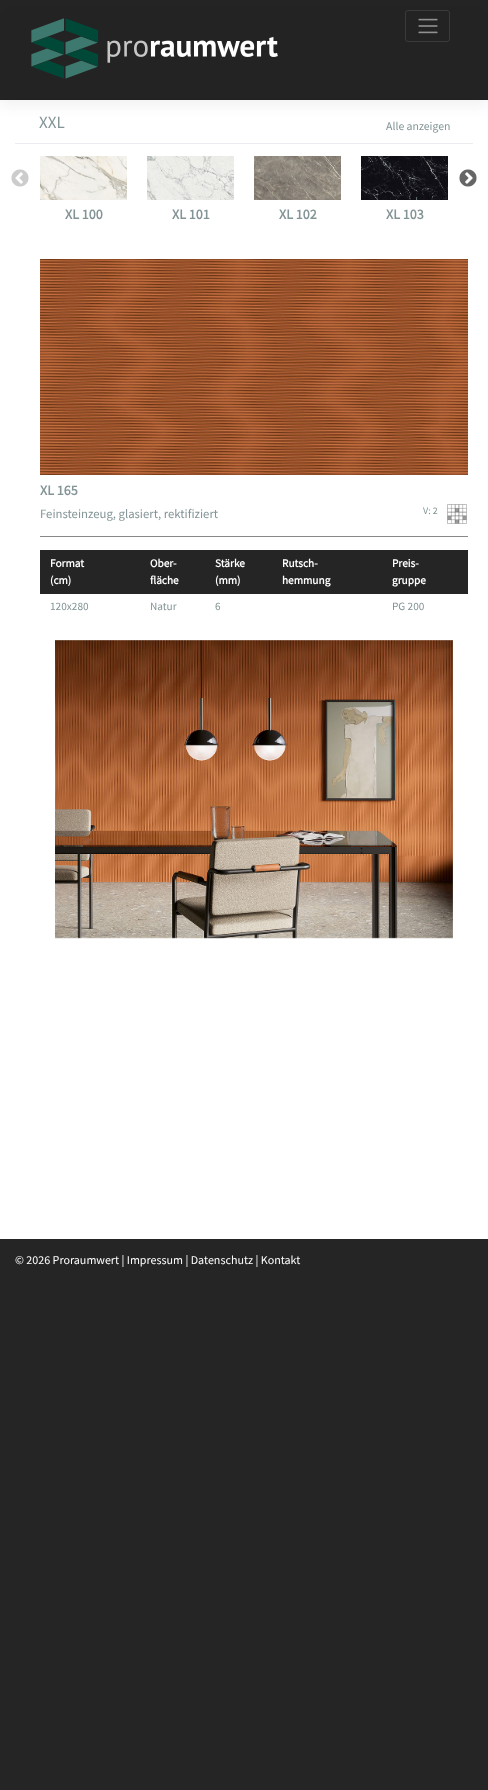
async function draw(canvas) {
  canvas.width = 488;
  canvas.height = 1790;
  const ctx = canvas.getContext('2d');
  ctx.miterLimit = 4;
  ctx.fontKerning = 'normal';
  function label(s, x, y, font, color) {
    ctx.font = font;
    ctx.fillStyle = color;
    ctx.fillText(s, x, y);
  }
  function rect(x, y, w, h, color) {
    ctx.fillStyle = color;
    ctx.fillRect(x, y, w, h);
  }
  async function image(src, x, y, w, h) {
    const img = new Image();
    img.src = src;
    await img.decode();
    ctx.drawImage(img, x, y, w, h);
  }

  rect(0, 0, 488, 1790, '#252525');
  rect(0, 100, 488, 1139, '#fff');
  ctx.fillStyle = '#0000000d';
  ctx.filter = 'blur(6.5px)';
  ctx.beginPath();
  ctx.rect(0, 6, 488, 100);
  ctx.fill();
  ctx.filter = 'none';
  rect(0, 99, 488, 1, '#212121');
  await image('assets/img1.png', 31, 18, 247, 61);
  ctx.beginPath();
  ctx.roundRect(405.5, 10.5, 44, 31, 2.5);
  ctx.strokeStyle = '#3b3b3b';
  ctx.stroke();
  await image('assets/img2.png', 418, 18, 20, 16);
  rect(15, 143, 458, 1, '#eaecef');
  label('XXL', 39, 128, '17px Source Sans Pro', '#839496');
  label('Alle anzeigen', 386, 130, '11.75px Source Sans Pro', '#839496');
  await image('assets/img3.png', 11, 169, 18, 18);
  await image('assets/img4.png', 459, 169, 18, 18);
  await image('assets/img5.png', 40, 156, 87, 44);
  label('XL 100', 65, 219, 'bold 14px Source Sans Pro', '#839496');
  await image('assets/img6.png', 147, 156, 87, 44);
  label('XL 101', 172, 219, 'bold 14px Source Sans Pro', '#839496');
  await image('assets/img7.png', 254, 156, 87, 44);
  label('XL 102', 279, 219, 'bold 14px Source Sans Pro', '#839496');
  await image('assets/img8.png', 361, 156, 87, 44);
  label('XL 103', 386, 219, 'bold 14px Source Sans Pro', '#839496');
  await image('assets/img9.png', 40, 259, 428, 216);
  label('XL 165', 40, 495, 'bold 14px Source Sans Pro', '#839496');
  label('Feinsteinzeug, glasiert, rektifiziert', 40, 518, '12.7px Source Sans Pro', '#839496');
  label('V: 2', 423, 514, '10px Source Sans Pro', '#839496');
  await image('assets/img10.png', 447, 504, 20, 20);
  rect(40, 536, 428, 1, '#888');
  rect(40, 550, 428, 44, '#252525');
  label('Format', 50, 567, 'bold 11.25px Source Sans Pro', '#fff');
  label('(cm)', 50, 584, 'bold 11.25px Source Sans Pro', '#fff');
  label('Ober-', 150, 567, 'bold 11.25px Source Sans Pro', '#fff');
  label('fläche', 150, 584, 'bold 11.25px Source Sans Pro', '#fff');
  label('Stärke', 215, 567, 'bold 11.25px Source Sans Pro', '#fff');
  label('(mm)', 215, 584, 'bold 11.25px Source Sans Pro', '#fff');
  label('Rutsch-', 282, 567, 'bold 11.25px Source Sans Pro', '#fff');
  label('hemmung', 282, 584, 'bold 11.25px Source Sans Pro', '#fff');
  label('Preis-', 392, 567, 'bold 11.25px Source Sans Pro', '#fff');
  label('gruppe', 392, 584, 'bold 11.25px Source Sans Pro', '#fff');
  label('120x280', 50, 610, '11.25px Source Sans Pro', '#839496');
  label('Natur', 150, 610, '11.25px Source Sans Pro', '#839496');
  label('6', 215, 610, '11.25px Source Sans Pro', '#839496');
  label('PG 200', 392, 610, '11.25px Source Sans Pro', '#839496');
  await image('assets/img11.png', 55, 640, 398, 299);
  label('© 2026 Proraumwert | Impressum | Datenschutz | Kontakt', 15, 1264, '12px Source Sans Pro', '#fff');
}

draw(document.querySelector('canvas'));
